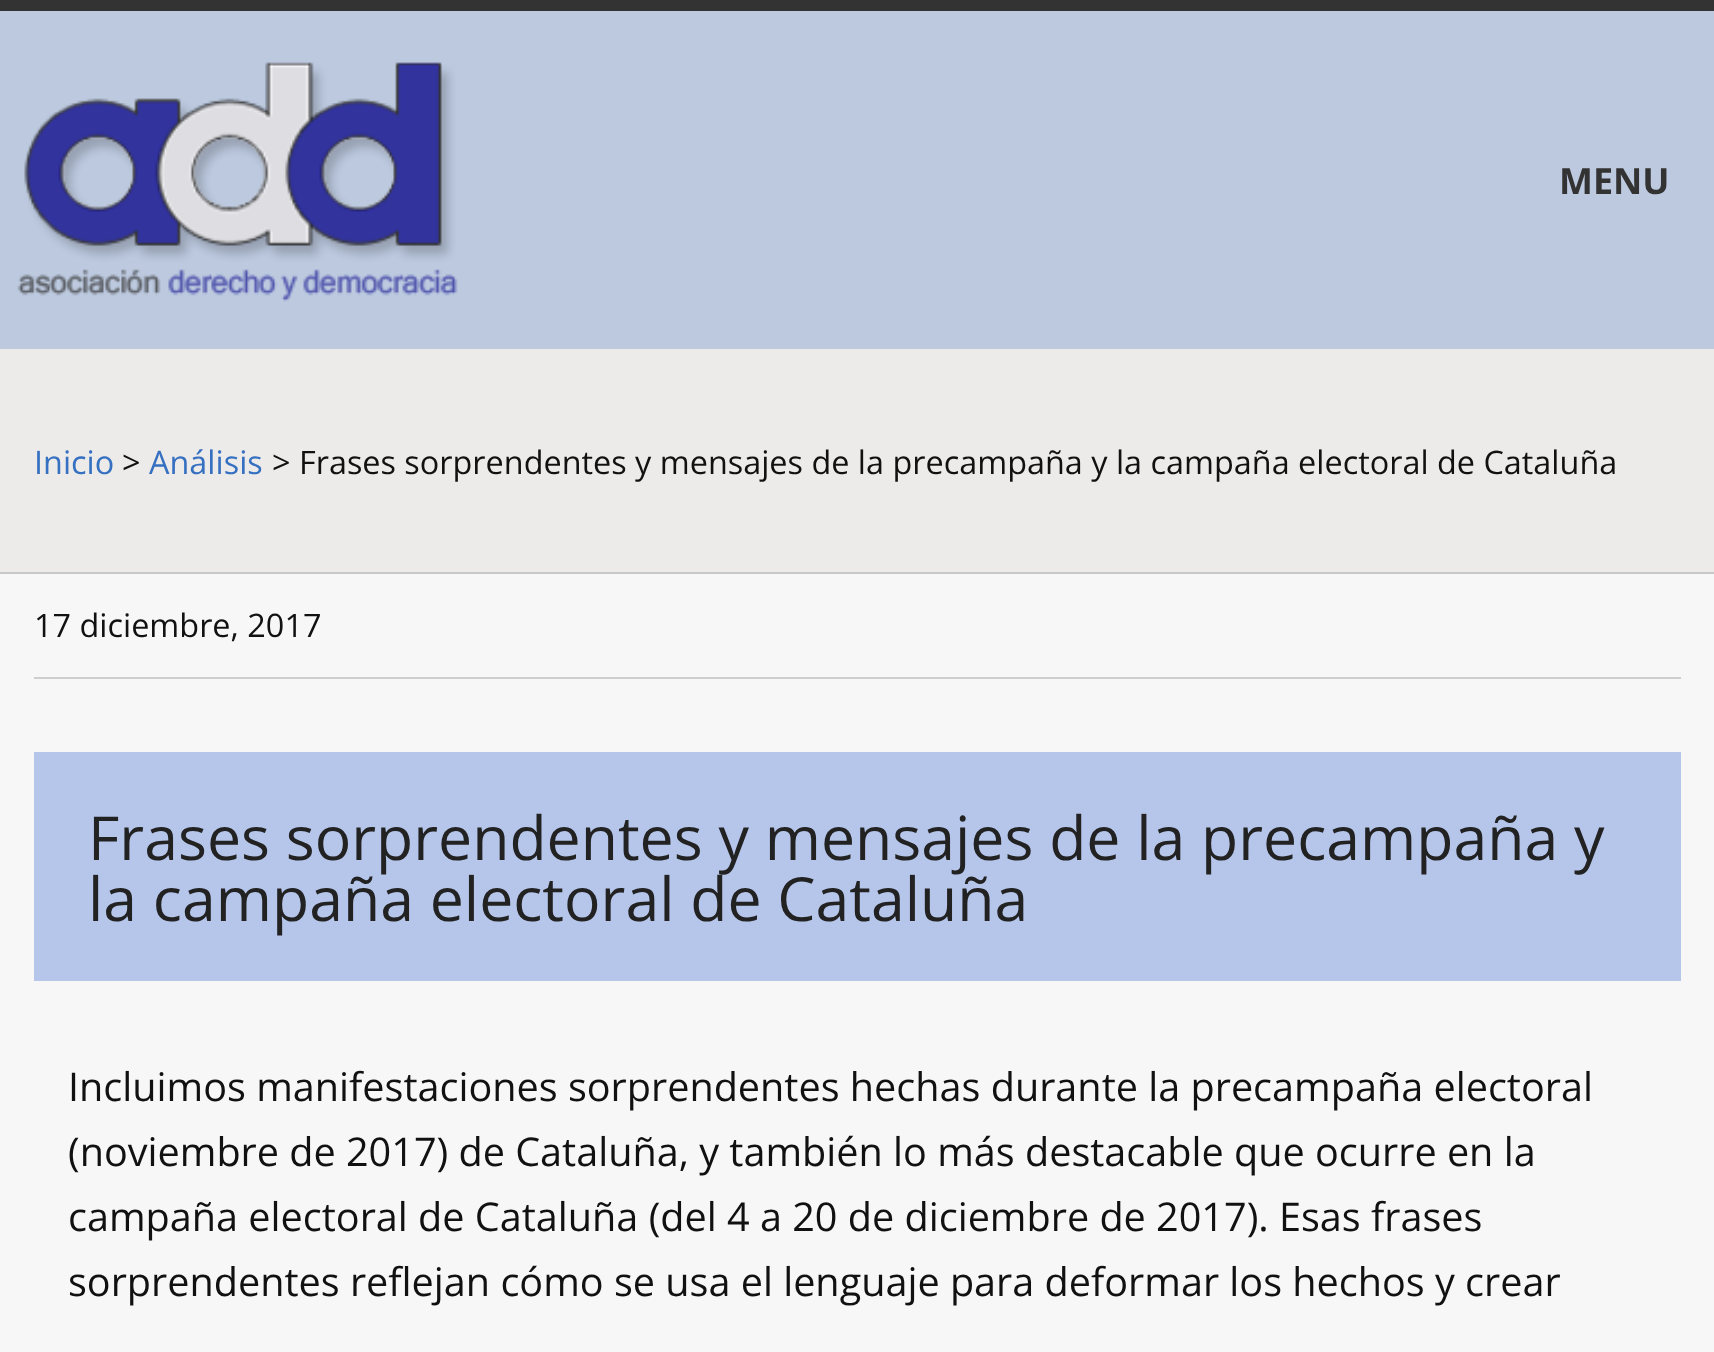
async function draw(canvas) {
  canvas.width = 1714;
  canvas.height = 1352;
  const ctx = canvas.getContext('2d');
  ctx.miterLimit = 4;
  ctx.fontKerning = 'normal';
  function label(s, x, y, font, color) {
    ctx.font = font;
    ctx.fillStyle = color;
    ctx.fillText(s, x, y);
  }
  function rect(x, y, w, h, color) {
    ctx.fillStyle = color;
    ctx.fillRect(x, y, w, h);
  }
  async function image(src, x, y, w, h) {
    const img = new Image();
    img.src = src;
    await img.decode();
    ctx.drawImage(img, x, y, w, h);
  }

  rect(0, 0, 1714, 1352, '#333');
  rect(0, 11, 1714, 338, '#bcc9df');
  await image('assets/img1.png', 17, 62, 441, 240);
  label('MENU', 1559, 194, 'bold 36px Open Sans', '#333');
  rect(0, 574, 1714, 778, '#f8f7f7');
  rect(0, 349, 1714, 223, '#edebea');
  rect(0, 572, 1714, 2, '#c7c7c7');
  label('Inicio', 34, 474, '32.4px Open Sans', '#3670c1');
  label('>', 122, 474, '32.4px Open Sans', '#111');
  label('Análisis', 149, 474, '32.4px Open Sans', '#3670c1');
  label('> Frases sorprendentes y mensajes de la precampaña y la campaña electoral de Cataluña', 272, 474, '32.4px Open Sans', '#111');
  rect(34, 677, 1647, 2, '#cecece');
  label('17 diciembre, 2017', 34, 637, '32.4px Open Sans', '#111');
  rect(34, 752, 1647, 229, '#b6c6eb');
  label('Frases sorprendentes y mensajes de la precampaña y', 88, 860, '60.75px Open Sans', '#222');
  label('la campaña electoral de Cataluña', 88, 921, '60.75px Open Sans', '#222');
  label('Incluimos manifestaciones sorprendentes hechas durante la precampaña electoral', 68, 1101, '39.6px Open Sans', '#111');
  label('(noviembre de 2017) de Cataluña, y también lo más destacable que ocurre en la', 68, 1166, '39.6px Open Sans', '#111');
  label('campaña electoral de Cataluña (del 4 a 20 de diciembre de 2017). Esas frases', 68, 1231, '39.6px Open Sans', '#111');
  label('sorprendentes reflejan cómo se usa el lenguaje para deformar los hechos y crear', 68, 1296, '39.6px Open Sans', '#111');
}

draw(document.querySelector('canvas'));
